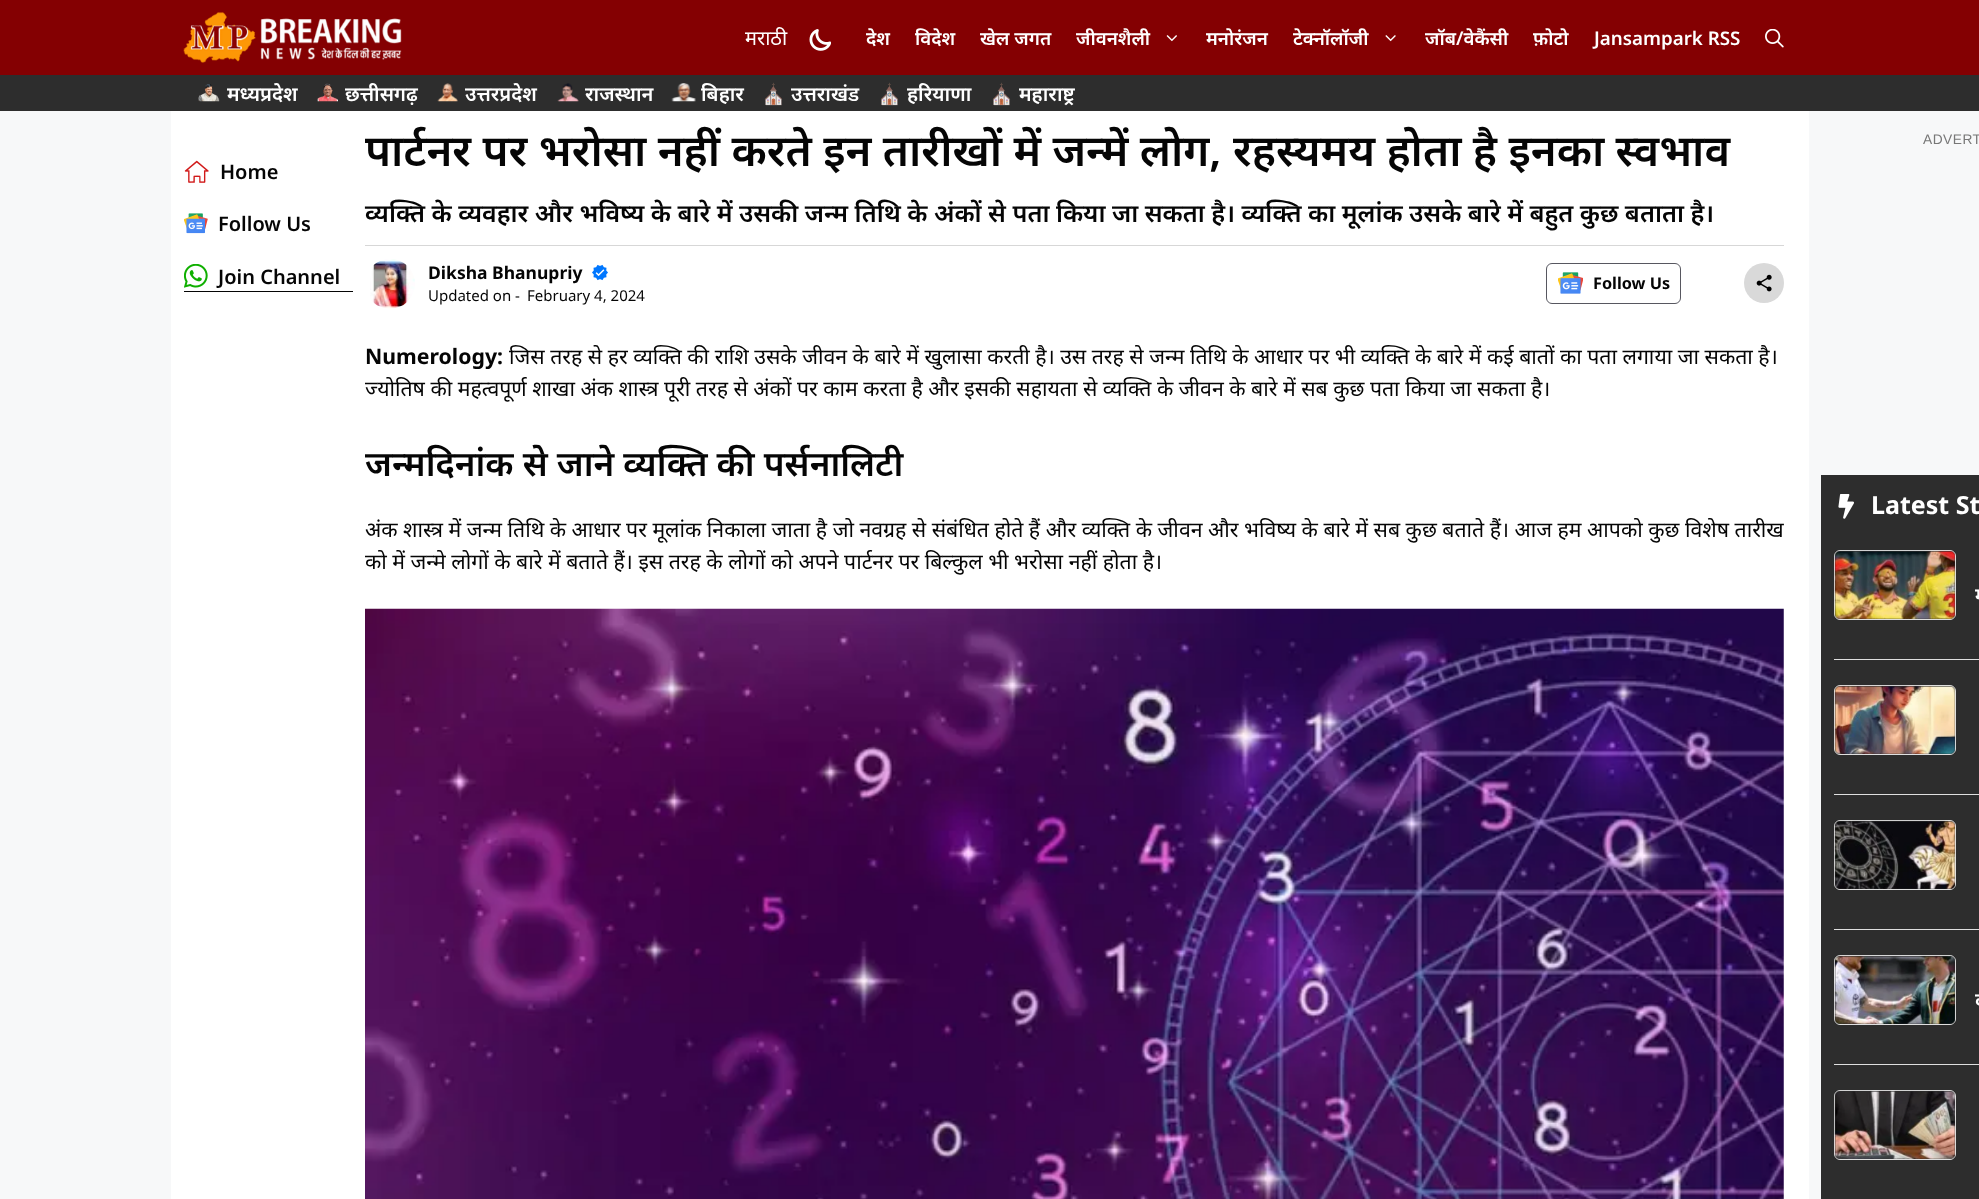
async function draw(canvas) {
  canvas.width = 1979;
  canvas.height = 1199;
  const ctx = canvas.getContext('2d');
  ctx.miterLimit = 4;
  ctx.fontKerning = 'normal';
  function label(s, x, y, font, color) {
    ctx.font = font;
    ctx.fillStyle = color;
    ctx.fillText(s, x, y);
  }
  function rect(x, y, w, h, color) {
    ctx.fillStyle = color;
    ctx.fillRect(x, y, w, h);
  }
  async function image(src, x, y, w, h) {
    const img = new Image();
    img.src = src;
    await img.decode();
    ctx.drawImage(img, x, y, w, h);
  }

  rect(0, 0, 1979, 1199, '#f7f8f9');
  rect(0, 0, 1979, 75, '#840002');
  await image('assets/img1.png', 183, 12, 219, 51);
  label('मराठी', 745, 45, '20px Noto Sans', '#fff');
  await image('assets/img2.png', 809, 29, 22, 22);
  label('देश', 866, 45, '600 18.75px Noto Sans', '#fff');
  label('विदेश', 915, 45, '600 18.75px Noto Sans', '#fff');
  label('खेल जगत', 980, 45, '600 18.75px Noto Sans', '#fff');
  label('जीवनशैली', 1076, 45, '600 18.75px Noto Sans', '#fff');
  await image('assets/img3.png', 1166, 35, 11, 7);
  label('मनोरंजन', 1206, 45, '600 18.75px Noto Sans', '#fff');
  label('टेक्नॉलॉजी', 1293, 45, '600 18.75px Noto Sans', '#fff');
  await image('assets/img4.png', 1385, 35, 11, 7);
  label('जॉब/वेकैंसी', 1425, 45, '600 18.75px Noto Sans', '#fff');
  label('फ़ोटो', 1533, 45, '600 18.75px Noto Sans', '#fff');
  label('Jansampark RSS', 1594, 45, '600 18.75px Noto Sans', '#fff');
  await image('assets/img5.png', 1765, 29, 19, 19);
  rect(0, 75, 1979, 36, '#2d2d2d');
  await image('assets/img6.png', 198, 84, 22, 18);
  label('मध्यप्रदेश', 227, 101, '600 20px Noto Sans', '#fff');
  await image('assets/img7.png', 317, 83, 21, 19);
  label('छत्तीसगढ़', 345, 101, '600 20px Noto Sans', '#fff');
  await image('assets/img8.png', 437, 83, 21, 19);
  label('उत्तरप्रदेश', 465, 101, '600 20px Noto Sans', '#fff');
  await image('assets/img9.png', 557, 83, 22, 19);
  label('राजस्थान', 585, 101, '600 20px Noto Sans', '#fff');
  await image('assets/img10.png', 671, 83, 25, 19);
  label('बिहार', 701, 101, '600 20px Noto Sans', '#fff');
  label('⛪', 761, 101, 'bold 20px Noto Color Emoji', '#fff');
  label('उत्तराखंड', 791, 101, '600 20px Noto Sans', '#fff');
  label('⛪', 877, 101, 'bold 20px Noto Color Emoji', '#fff');
  label('हरियाणा', 907, 101, '600 20px Noto Sans', '#fff');
  label('⛪', 989, 101, 'bold 20px Noto Color Emoji', '#fff');
  label('महाराष्ट्र', 1019, 101, '600 20px Noto Sans', '#fff');
  rect(171, 111, 1638, 1088, '#fff');
  rect(184, 291, 169, 1, '#050505');
  await image('assets/img11.png', 184, 160, 25, 23);
  label('Home', 220, 179, '600 20px Noto Sans', '#050505');
  await image('assets/img12.png', 184, 213, 24, 21);
  label('Follow Us', 218, 231, '600 20px Noto Sans', '#050505');
  await image('assets/img13.png', 184, 264, 24, 24);
  label('Join Channel', 218, 284, '600 20px Noto Sans', '#050505');
  label('पार्टनर पर भरोसा नहीं करते इन तारीखों में जन्में लोग, रहस्यमय होता है इनका स्वभाव', 365, 166, '600 43.75px Noto Sans', '#050505');
  label('व्यक्ति के व्यवहार और भविष्य के बारे में उसकी जन्म तिथि के अंकों से पता किया जा सकता है। व्यक्ति का मूलांक उसके बारे में बहुत कुछ बताता है।', 365, 222, '600 25px Noto Sans', '#050505');
  rect(365, 245, 1419, 1, '#d7d7d7');
  await image('assets/img14.png', 370, 259, 45, 50);
  label('Diksha Bhanupriy', 428, 279, 'bold 17.5px Noto Sans', '#050505');
  await image('assets/img15.png', 592, 264, 16, 17);
  label('Updated on -', 428, 301, '15px Noto Sans', '#050505');
  label('February 4, 2024', 527, 301, '15px Noto Sans', '#050505');
  ctx.beginPath();
  ctx.roundRect(1546.5, 263.5, 134, 40, 5.5);
  ctx.strokeStyle = '#575760';
  ctx.stroke();
  await image('assets/img16.png', 1558, 272, 25, 22);
  label('Follow Us', 1593, 289, 'bold 16.25px Noto Sans', '#050505');
  ctx.fillStyle = '#d9d9d9';
  ctx.beginPath();
  ctx.arc(1764, 283, 20, 0, 2 * Math.PI);
  ctx.fill();
  await image('assets/img17.png', 1756, 274, 16, 18);
  label('Numerology:', 365, 364, 'bold 21.25px Noto Sans', '#050505');
  label('जिस तरह से हर व्यक्ति की राशि उसके जीवन के बारे में खुलासा करती है। उस तरह से जन्म तिथि के आधार पर भी व्यक्ति के बारे में कई बातों का पता लगाया जा सकता है।', 509, 364, '21.25px Noto Sans', '#050505');
  label('ज्योतिष की महत्वपूर्ण शाखा अंक शास्त्र पूरी तरह से अंकों पर काम करता है और इसकी सहायता से व्यक्ति के जीवन के बारे में सब कुछ पता किया जा सकता है।', 365, 396, '21.25px Noto Sans', '#050505');
  label('जन्मदिनांक से जाने व्यक्ति की पर्सनालिटी', 365, 476, '600 35px Noto Sans', '#050505');
  label('अंक शास्त्र में जन्म तिथि के आधार पर मूलांक निकाला जाता है जो नवग्रह से संबंधित होते हैं और व्यक्ति के जीवन और भविष्य के बारे में सब कुछ बताते हैं। आज हम आपको कुछ विशेष तारीख', 365, 537, '21.25px Noto Sans', '#050505');
  label('को में जन्मे लोगों के बारे में बताते हैं। इस तरह के लोगों को अपने पार्टनर पर बिल्कुल भी भरोसा नहीं होता है।', 365, 569, '21.25px Noto Sans', '#050505');
  await image('assets/img18.png', 365, 608, 1419, 591);
  ctx.letterSpacing = '0.5px';
  label('ADVERT', 1923, 144, '13.75px Liberation Sans', '#777');
  rect(1821, 475, 158, 724, '#2d2d2d');
  await image('assets/img19.png', 1838, 494, 16, 25);
  ctx.letterSpacing = '0px';
  label('Latest St', 1871, 514, 'bold 25px Noto Sans', '#fff');
  rect(1834, 659, 145, 1, '#dfdfdf');
  ctx.beginPath();
  ctx.roundRect(1834.5, 550.5, 121, 69, 5.5);
  ctx.strokeStyle = '#dfdfdf';
  ctx.stroke();
  await image('assets/img20.png', 1834, 550, 122, 69);
  label('म', 1975, 602, '600 20px Noto Sans', '#fff');
  rect(1834, 794, 145, 1, '#dfdfdf');
  ctx.beginPath();
  ctx.roundRect(1834.5, 685.5, 121, 69, 5.5);
  ctx.stroke();
  await image('assets/img21.png', 1834, 685, 122, 69);
  rect(1834, 929, 145, 1, '#dfdfdf');
  ctx.beginPath();
  ctx.roundRect(1834.5, 820.5, 121, 69, 5.5);
  ctx.stroke();
  await image('assets/img22.png', 1834, 820, 122, 69);
  rect(1834, 1064, 145, 1, '#dfdfdf');
  ctx.beginPath();
  ctx.roundRect(1834.5, 955.5, 121, 69, 5.5);
  ctx.stroke();
  await image('assets/img23.png', 1834, 955, 122, 69);
  label('द', 1975, 1007, '600 20px Noto Sans', '#fff');
  ctx.beginPath();
  ctx.roundRect(1834.5, 1090.5, 121, 69, 5.5);
  ctx.stroke();
  await image('assets/img24.png', 1834, 1090, 122, 69);
}

draw(document.querySelector('canvas'));
